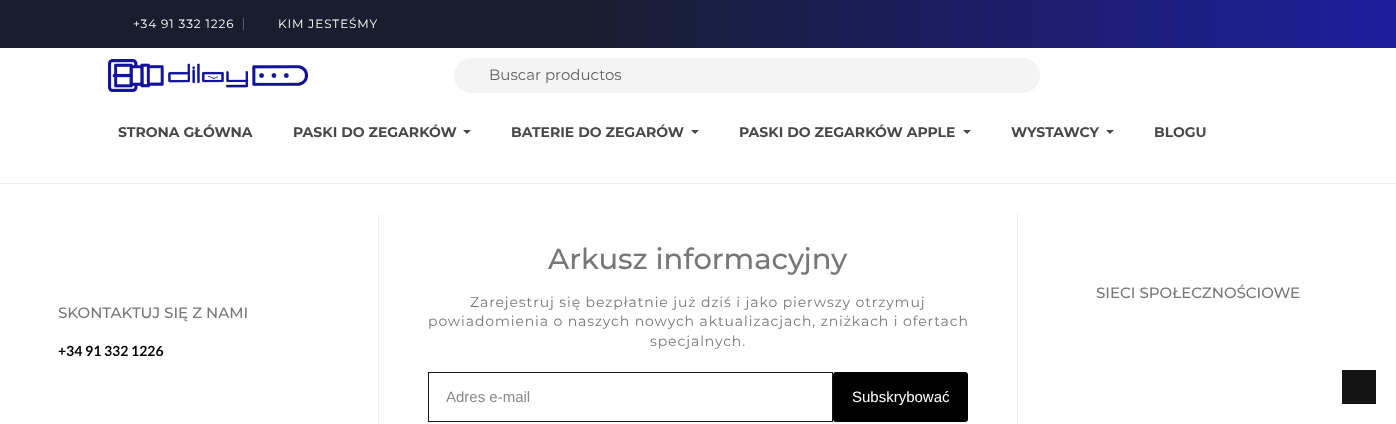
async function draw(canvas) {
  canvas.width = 1396;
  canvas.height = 424;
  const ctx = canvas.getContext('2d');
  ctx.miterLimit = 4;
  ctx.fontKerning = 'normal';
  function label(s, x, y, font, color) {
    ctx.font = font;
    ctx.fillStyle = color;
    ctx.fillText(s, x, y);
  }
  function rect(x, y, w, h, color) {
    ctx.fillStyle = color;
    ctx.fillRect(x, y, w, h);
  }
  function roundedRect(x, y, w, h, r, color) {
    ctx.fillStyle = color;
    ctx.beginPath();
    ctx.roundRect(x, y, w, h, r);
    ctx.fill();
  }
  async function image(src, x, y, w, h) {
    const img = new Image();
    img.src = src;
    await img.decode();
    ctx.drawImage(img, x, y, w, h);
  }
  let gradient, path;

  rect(0, 0, 1396, 424, '#fff');
  gradient = ctx.createLinearGradient(0, 24, 1396, 24);
  gradient.addColorStop(0.41, '#191e2f');
  gradient.addColorStop(1, '#1e1e9e');
  ctx.fillStyle = gradient;
  ctx.fillRect(0, 0, 1396, 48);
  ctx.letterSpacing = '0.9px';
  label('+34 91 332 1226', 133, 28, '100 12px Montserrat', '#fff');
  rect(243, 18, 1, 12, '#575b67');
  label('KIM JESTEŚMY', 278, 28, '100 12px Montserrat', '#fff');
  await image('assets/img1.png', 108, 59, 200, 33);
  roundedRect(454, 58, 586, 35, 17.5, '#f4f4f4');
  ctx.letterSpacing = '0px';
  label('Buscar productos', 489, 80, '100 15px Montserrat', '#626262');
  label('STRONA GŁÓWNA', 118, 137, 'bold 14px Montserrat', '#484848');
  label('PASKI DO ZEGARKÓW', 293, 137, 'bold 14px Montserrat', '#484848');
  path = new Path2D('M463 130H471L467 134Z');
  ctx.fill(path);
  label('BATERIE DO ZEGARÓW', 511, 137, 'bold 14px Montserrat', '#484848');
  path = new Path2D('M691 130H699L695 134Z');
  ctx.fill(path);
  label('PASKI DO ZEGARKÓW APPLE', 739, 137, 'bold 14px Montserrat', '#484848');
  path = new Path2D('M963 130H971L967 134Z');
  ctx.fill(path);
  label('WYSTAWCY', 1011, 137, 'bold 14px Montserrat', '#484848');
  path = new Path2D('M1106 130H1114L1110 134Z');
  ctx.fill(path);
  label('BLOGU', 1154, 137, 'bold 14px Montserrat', '#484848');
  rect(0, 183, 1396, 1, '#eee');
  rect(1017, 214, 1, 210, '#eee');
  rect(378, 214, 1, 210, '#eee');
  label('Arkusz informacyjny', 548, 269, '500 29px Montserrat', '#777');
  ctx.letterSpacing = '0.9px';
  label('Zarejestruj się bezpłatnie już dziś i jako pierwszy otrzymuj', 470, 307, '100 14px Montserrat', '#777');
  label('powiadomienia o naszych nowych aktualizacjach, zniżkach i ofertach', 428, 326, '100 14px Montserrat', '#777');
  label('specjalnych.', 650, 346, '100 14px Montserrat', '#777');
  ctx.strokeStyle = '#141414';
  ctx.strokeRect(428.5, 372.5, 404, 49);
  ctx.letterSpacing = '0px';
  label('Adres e-mail', 446, 402, '15px Liberation Sans', '#87898a');
  roundedRect(833, 372, 135, 50, 3, '#000');
  label('Subskrybować', 852, 402, '15px Liberation Sans', '#fff');
  label('SIECI SPOŁECZNOŚCIOWE', 1096, 298, '500 15px Montserrat', '#777');
  rect(1342, 370, 34, 34, '#141414');
  label('SKONTAKTUJ SIĘ Z NAMI', 58, 318, '500 15px Montserrat', '#777');
  label('+34 91 332 1226', 58, 356, 'bold 14px Lato', '#000');
}

draw(document.querySelector('canvas'));
